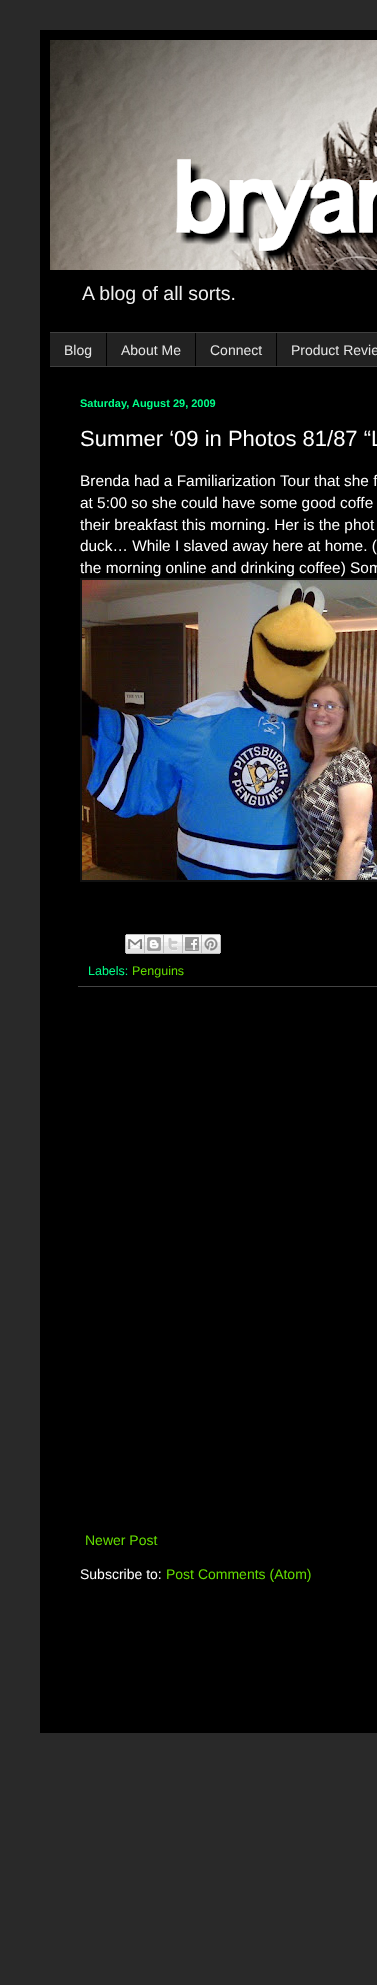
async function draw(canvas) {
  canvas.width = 377;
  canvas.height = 1985;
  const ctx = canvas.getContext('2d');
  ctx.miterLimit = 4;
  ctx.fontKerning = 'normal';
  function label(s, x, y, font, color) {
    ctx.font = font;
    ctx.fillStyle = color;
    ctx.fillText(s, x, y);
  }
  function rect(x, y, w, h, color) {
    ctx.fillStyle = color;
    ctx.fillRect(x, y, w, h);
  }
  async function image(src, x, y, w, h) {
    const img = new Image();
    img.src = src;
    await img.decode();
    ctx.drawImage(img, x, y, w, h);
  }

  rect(0, 0, 377, 1985, '#292929');
  rect(40, 30, 337, 1703, '#000');
  await image('assets/img1.png', 50, 40, 327, 230);
  label('A blog of all sorts.', 82, 300, '19.5px Liberation Sans', '#eee');
  rect(50, 333, 327, 33, '#222');
  rect(50, 332, 327, 1, '#404040');
  rect(50, 366, 327, 1, '#404040');
  label('Blog', 64, 355, '14px Liberation Sans', '#e5e5e5');
  rect(106, 333, 1, 33, '#000');
  label('About Me', 121, 355, '14px Liberation Sans', '#e5e5e5');
  rect(195, 333, 1, 33, '#000');
  label('Connect', 210, 355, '14px Liberation Sans', '#e5e5e5');
  rect(276, 333, 1, 33, '#000');
  label('Product Revie', 291, 355, '14px Liberation Sans', '#e5e5e5');
  label('Saturday, August 29, 2009', 80, 407, 'bold 11px Liberation Sans', '#00ff89');
  label('Summer ‘09 in Photos 81/87 “L', 80, 446, '22px Liberation Sans', '#fff');
  label('Brenda had a Familiarization Tour that she f', 80, 486, '15.4px Liberation Sans', '#fff');
  label('at 5:00 so she could have some good coffe', 80, 508, '15.4px Liberation Sans', '#fff');
  label('their breakfast this morning. Her is the phot', 80, 530, '15.4px Liberation Sans', '#fff');
  label('duck… While I slaved away here at home. (', 80, 551, '15.4px Liberation Sans', '#fff');
  label('the morning online and drinking coffee) Som', 80, 573, '15.4px Liberation Sans', '#fff');
  rect(80, 578, 297, 304, '#111');
  await image('assets/img2.png', 82, 580, 295, 300);
  rect(78, 986, 299, 1, '#444');
  await image('assets/img3.png', 125, 934, 20, 20);
  await image('assets/img4.png', 145, 934, 19, 20);
  await image('assets/img5.png', 164, 934, 19, 20);
  await image('assets/img6.png', 183, 934, 19, 20);
  await image('assets/img7.png', 202, 934, 19, 20);
  label('Labels:', 88, 975, '12.5px Liberation Sans', '#00ff89');
  label('Penguins', 132, 975, '12.5px Liberation Sans', '#65dd00');
  label('Newer Post', 85, 1545, '14px Liberation Sans', '#65dd00');
  label('Subscribe to:', 80, 1579, '14px Liberation Sans', '#fff');
  label('Post Comments (Atom)', 166, 1579, '14px Liberation Sans', '#65dd00');
}

draw(document.querySelector('canvas'));
